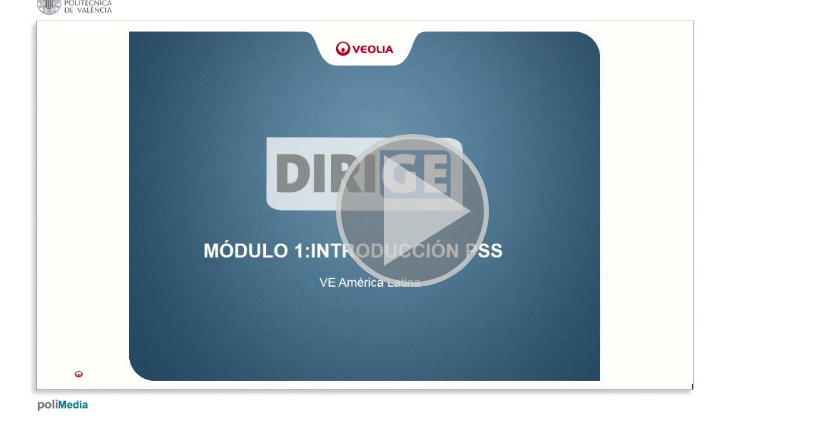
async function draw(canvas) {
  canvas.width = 826;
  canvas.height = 424;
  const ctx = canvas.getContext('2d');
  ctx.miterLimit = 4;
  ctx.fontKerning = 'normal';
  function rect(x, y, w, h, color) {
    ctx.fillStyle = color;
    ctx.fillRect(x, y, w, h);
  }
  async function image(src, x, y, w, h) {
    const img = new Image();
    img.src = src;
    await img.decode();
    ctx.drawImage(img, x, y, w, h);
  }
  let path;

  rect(0, 0, 826, 424, '#fff');
  await image('assets/img1.png', 0, 0, 826, 424);
  ctx.fillStyle = '#80808099';
  ctx.beginPath();
  ctx.arc(412.5, 210.5, 76.5, 0, 2 * Math.PI);
  ctx.fill();
  ctx.fillStyle = '#ebebeb99';
  path = new Path2D('M413 134C455 134 489 168 489 211C489 253 455 287 413 287C370 287 336 253 336 211C336 168 370 134 413 134ZM413 139C452 139 484 171 484 211C484 250 452 282 413 282C373 282 341 250 341 211C341 171 373 139 413 139Z');
  ctx.fill(path, 'evenodd');
  path = new Path2D('M471 211L384 266V155Z');
  ctx.fill(path, 'evenodd');
}

draw(document.querySelector('canvas'));
